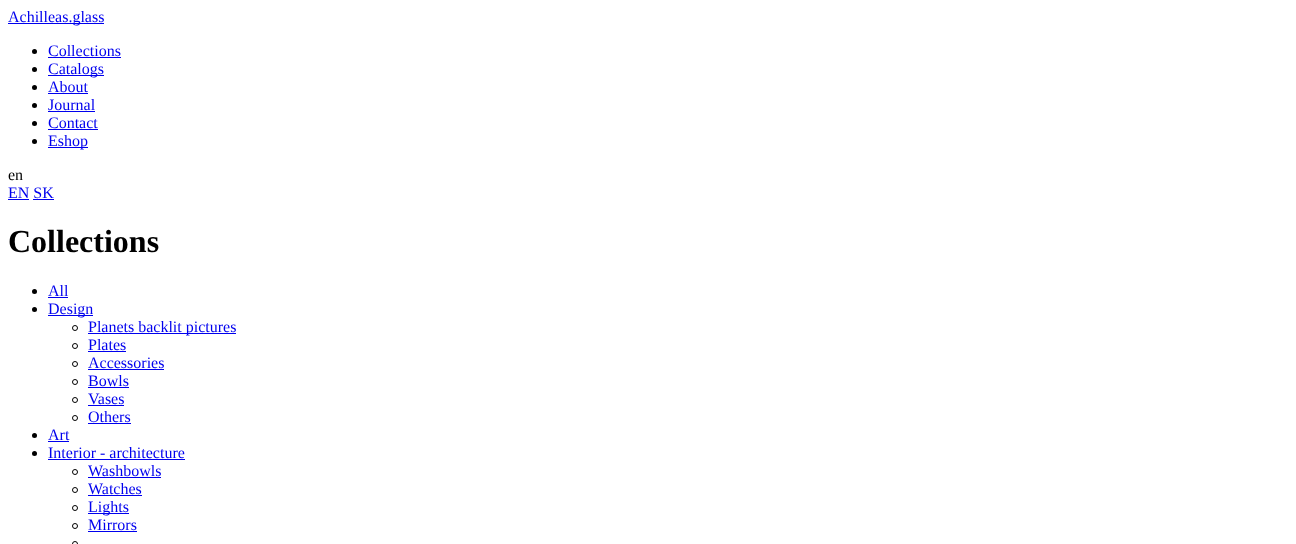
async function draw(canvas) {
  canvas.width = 1296;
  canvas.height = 544;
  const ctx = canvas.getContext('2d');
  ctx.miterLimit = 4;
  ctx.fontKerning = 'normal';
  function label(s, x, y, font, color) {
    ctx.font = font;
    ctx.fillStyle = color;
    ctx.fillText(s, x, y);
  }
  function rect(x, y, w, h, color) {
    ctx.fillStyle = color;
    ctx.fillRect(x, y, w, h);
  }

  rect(0, 0, 1296, 544, '#fff');
  rect(8, 23, 96, 1, '#00e');
  label('Achilleas.glass', 8, 22, '16px Liberation Serif', '#00e');
  ctx.fillStyle = '#000';
  ctx.beginPath();
  ctx.arc(34.5, 51.5, 2.5, 0, 2 * Math.PI);
  ctx.fill();
  label('Collections', 48, 56, '16px Liberation Serif', '#00e');
  rect(48, 57, 73, 1, '#00e');
  ctx.fillStyle = '#000';
  ctx.beginPath();
  ctx.arc(34.5, 69.5, 2.5, 0, 2 * Math.PI);
  ctx.fill();
  rect(48, 75, 56, 1, '#00e');
  label('Catalogs', 48, 74, '16px Liberation Serif', '#00e');
  ctx.fillStyle = '#000';
  ctx.beginPath();
  ctx.arc(34.5, 87.5, 2.5, 0, 2 * Math.PI);
  ctx.fill();
  label('About', 48, 92, '16px Liberation Serif', '#00e');
  rect(48, 93, 40, 1, '#00e');
  ctx.fillStyle = '#000';
  ctx.beginPath();
  ctx.arc(34.5, 105.5, 2.5, 0, 2 * Math.PI);
  ctx.fill();
  label('Journal', 48, 110, '16px Liberation Serif', '#00e');
  rect(48, 111, 47, 1, '#00e');
  ctx.fillStyle = '#000';
  ctx.beginPath();
  ctx.arc(34.5, 123.5, 2.5, 0, 2 * Math.PI);
  ctx.fill();
  label('Contact', 48, 128, '16px Liberation Serif', '#00e');
  rect(48, 129, 50, 1, '#00e');
  ctx.fillStyle = '#000';
  ctx.beginPath();
  ctx.arc(34.5, 141.5, 2.5, 0, 2 * Math.PI);
  ctx.fill();
  rect(48, 147, 40, 1, '#00e');
  label('Eshop', 48, 146, '16px Liberation Serif', '#00e');
  label('en', 8, 180, '16px Liberation Serif', '#000');
  label('EN SK', 8, 198, '16px Liberation Serif', '#00e');
  rect(8, 199, 21, 1, '#00e');
  rect(33, 199, 21, 1, '#00e');
  label('Collections', 8, 252, 'bold 32px Liberation Serif', '#000');
  ctx.beginPath();
  ctx.arc(34.5, 291.5, 2.5, 0, 2 * Math.PI);
  ctx.fill();
  label('All', 48, 296, '16px Liberation Serif', '#00e');
  rect(48, 297, 20, 1, '#00e');
  ctx.fillStyle = '#000';
  ctx.beginPath();
  ctx.arc(34.5, 309.5, 2.5, 0, 2 * Math.PI);
  ctx.fill();
  rect(48, 315, 45, 1, '#00e');
  label('Design', 48, 314, '16px Liberation Serif', '#00e');
  ctx.beginPath();
  ctx.arc(75, 328, 2.5, 0, 2 * Math.PI);
  ctx.strokeStyle = '#000';
  ctx.stroke();
  rect(88, 333, 148, 1, '#00e');
  label('Planets backlit pictures', 88, 332, '16px Liberation Serif', '#00e');
  ctx.beginPath();
  ctx.arc(75, 346, 2.5, 0, 2 * Math.PI);
  ctx.stroke();
  label('Plates', 88, 350, '16px Liberation Serif', '#00e');
  rect(88, 351, 38, 1, '#00e');
  ctx.beginPath();
  ctx.arc(75, 364, 2.5, 0, 2 * Math.PI);
  ctx.stroke();
  label('Accessories', 88, 368, '16px Liberation Serif', '#00e');
  rect(88, 369, 76, 1, '#00e');
  ctx.beginPath();
  ctx.arc(75, 382, 2.5, 0, 2 * Math.PI);
  ctx.stroke();
  label('Bowls', 88, 386, '16px Liberation Serif', '#00e');
  rect(88, 387, 41, 1, '#00e');
  ctx.beginPath();
  ctx.arc(75, 400, 2.5, 0, 2 * Math.PI);
  ctx.stroke();
  label('Vases', 88, 404, '16px Liberation Serif', '#00e');
  rect(88, 405, 36, 1, '#00e');
  ctx.beginPath();
  ctx.arc(75, 418, 2.5, 0, 2 * Math.PI);
  ctx.stroke();
  label('Others', 88, 422, '16px Liberation Serif', '#00e');
  rect(88, 423, 43, 1, '#00e');
  ctx.fillStyle = '#000';
  ctx.beginPath();
  ctx.arc(34.5, 435.5, 2.5, 0, 2 * Math.PI);
  ctx.fill();
  label('Art', 48, 440, '16px Liberation Serif', '#00e');
  rect(48, 441, 21, 1, '#00e');
  ctx.fillStyle = '#000';
  ctx.beginPath();
  ctx.arc(34.5, 453.5, 2.5, 0, 2 * Math.PI);
  ctx.fill();
  label('Interior - architecture', 48, 458, '16px Liberation Serif', '#00e');
  rect(48, 459, 137, 1, '#00e');
  ctx.beginPath();
  ctx.arc(75, 472, 2.5, 0, 2 * Math.PI);
  ctx.stroke();
  label('Washbowls', 88, 476, '16px Liberation Serif', '#00e');
  rect(88, 477, 73, 1, '#00e');
  ctx.beginPath();
  ctx.arc(75, 490, 2.5, 0, 2 * Math.PI);
  ctx.stroke();
  label('Watches', 88, 494, '16px Liberation Serif', '#00e');
  rect(88, 495, 54, 1, '#00e');
  ctx.beginPath();
  ctx.arc(75, 508, 2.5, 0, 2 * Math.PI);
  ctx.stroke();
  rect(88, 513, 41, 1, '#00e');
  label('Lights', 88, 512, '16px Liberation Serif', '#00e');
  ctx.beginPath();
  ctx.arc(75, 526, 2.5, 0, 2 * Math.PI);
  ctx.stroke();
  label('Mirrors', 88, 530, '16px Liberation Serif', '#00e');
  rect(88, 531, 49, 1, '#00e');
  ctx.beginPath();
  ctx.arc(75, 544, 2.5, 0, 2 * Math.PI);
  ctx.stroke();
}

draw(document.querySelector('canvas'));
